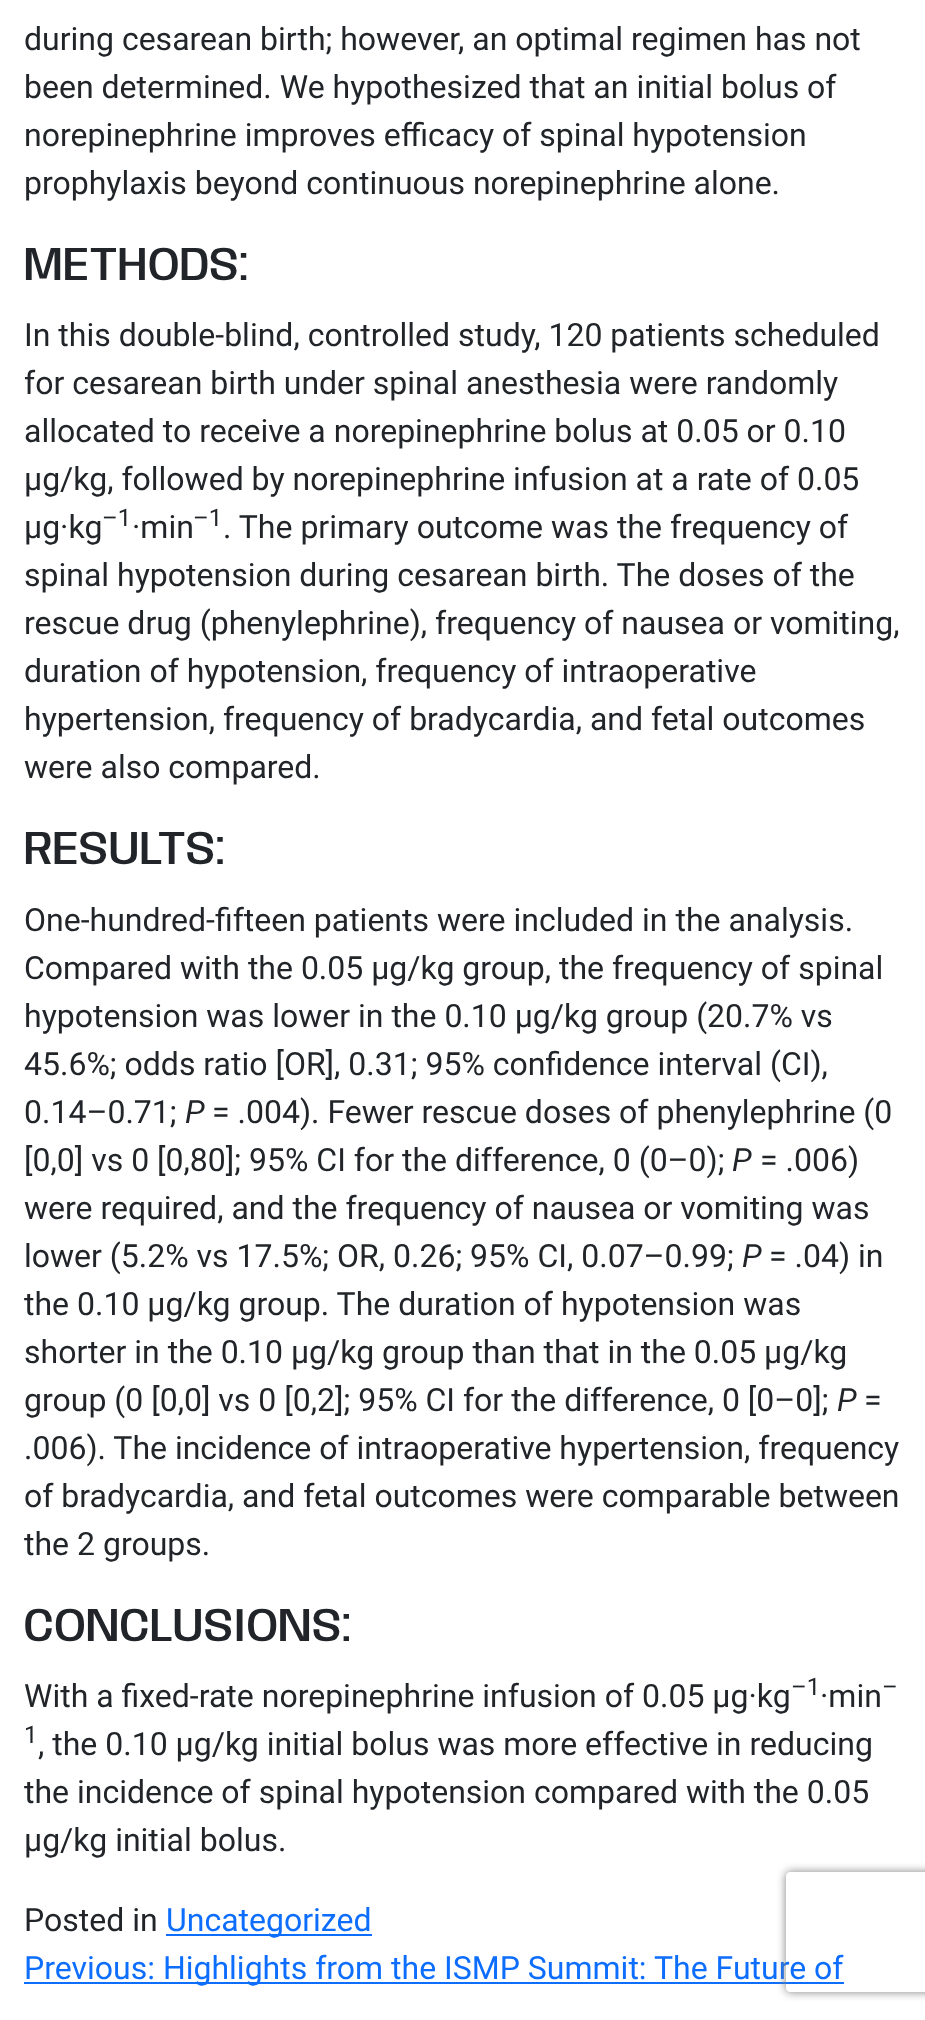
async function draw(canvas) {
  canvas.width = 925;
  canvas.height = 2020;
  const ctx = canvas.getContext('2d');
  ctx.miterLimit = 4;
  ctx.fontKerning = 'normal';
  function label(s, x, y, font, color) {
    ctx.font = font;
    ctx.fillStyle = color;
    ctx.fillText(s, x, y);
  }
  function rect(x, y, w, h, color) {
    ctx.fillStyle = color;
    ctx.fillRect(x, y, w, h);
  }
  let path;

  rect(0, 0, 925, 2020, '#fff');
  label('during cesarean birth; however, an optimal regimen has not', 24, 50, '32px Roboto', '#212529');
  label('been determined. We hypothesized that an initial bolus of', 24, 98, '32px Roboto', '#212529');
  label('norepinephrine improves efficacy of spinal hypotension', 24, 146, '32px Roboto', '#212529');
  label('prophylaxis beyond continuous norepinephrine alone.', 24, 194, '32px Roboto', '#212529');
  label('METHODS:', 24, 280, '500 47.25px Anybody', '#212529');
  label('In this double-blind, controlled study, 120 patients scheduled', 24, 346, '32px Roboto', '#212529');
  label('for cesarean birth under spinal anesthesia were randomly', 24, 394, '32px Roboto', '#212529');
  label('allocated to receive a norepinephrine bolus at 0.05 or 0.10', 24, 442, '32px Roboto', '#212529');
  label('μg/kg, followed by norepinephrine infusion at a rate of 0.05', 24, 490, '32px Roboto', '#212529');
  label('μg·kg', 24, 538, '32px Roboto', '#212529');
  label('–1', 102, 526, '24px Roboto', '#212529');
  label('·min', 132, 538, '32px Roboto', '#212529');
  label('–1', 193, 526, '24px Roboto', '#212529');
  label('. The primary outcome was the frequency of', 223, 538, '32px Roboto', '#212529');
  label('spinal hypotension during cesarean birth. The doses of the', 24, 586, '32px Roboto', '#212529');
  label('rescue drug (phenylephrine), frequency of nausea or vomiting,', 24, 634, '32px Roboto', '#212529');
  label('duration of hypotension, frequency of intraoperative', 24, 682, '32px Roboto', '#212529');
  label('hypertension, frequency of bradycardia, and fetal outcomes', 24, 730, '32px Roboto', '#212529');
  label('were also compared.', 24, 778, '32px Roboto', '#212529');
  label('RESULTS:', 24, 864, '500 47.25px Anybody', '#212529');
  label('One-hundred-fifteen patients were included in the analysis.', 24, 931, '32px Roboto', '#212529');
  label('Compared with the 0.05 μg/kg group, the frequency of spinal', 24, 979, '32px Roboto', '#212529');
  label('hypotension was lower in the 0.10 μg/kg group (20.7% vs', 24, 1027, '32px Roboto', '#212529');
  label('45.6%; odds ratio [OR], 0.31; 95% confidence interval (CI),', 24, 1075, '32px Roboto', '#212529');
  label('0.14–0.71;', 24, 1123, '32px Roboto', '#212529');
  label('P', 185, 1123, 'italic 32px Roboto', '#212529');
  label('= .004). Fewer rescue doses of phenylephrine (0', 212, 1123, '32px Roboto', '#212529');
  label('[0,0] vs 0 [0,80]; 95% CI for the difference, 0 (0–0);', 24, 1171, '32px Roboto', '#212529');
  label('P', 732, 1171, 'italic 32px Roboto', '#212529');
  label('= .006)', 760, 1171, '32px Roboto', '#212529');
  label('were required, and the frequency of nausea or vomiting was', 24, 1219, '32px Roboto', '#212529');
  label('lower (5.2% vs 17.5%; OR, 0.26; 95% CI, 0.07–0.99;', 24, 1267, '32px Roboto', '#212529');
  label('P', 742, 1267, 'italic 32px Roboto', '#212529');
  label('= .04) in', 769, 1267, '32px Roboto', '#212529');
  label('the 0.10 μg/kg group. The duration of hypotension was', 24, 1315, '32px Roboto', '#212529');
  label('shorter in the 0.10 μg/kg group than that in the 0.05 μg/kg', 24, 1363, '32px Roboto', '#212529');
  label('group (0 [0,0] vs 0 [0,2]; 95% CI for the difference, 0 [0–0];', 24, 1411, '32px Roboto', '#212529');
  label('P', 837, 1411, 'italic 32px Roboto', '#212529');
  label('=', 864, 1411, '32px Roboto', '#212529');
  label('.006). The incidence of intraoperative hypertension, frequency', 24, 1459, '32px Roboto', '#212529');
  label('of bradycardia, and fetal outcomes were comparable between', 24, 1507, '32px Roboto', '#212529');
  label('the 2 groups.', 24, 1555, '32px Roboto', '#212529');
  label('CONCLUSIONS:', 24, 1641, '500 47.25px Anybody', '#212529');
  label('With a fixed-rate norepinephrine infusion of 0.05 μg·kg', 24, 1707, '32px Roboto', '#212529');
  label('–1', 791, 1695, '24px Roboto', '#212529');
  label('·min', 820, 1707, '32px Roboto', '#212529');
  label('–', 882, 1695, '24px Roboto', '#212529');
  label('1', 24, 1743, '24px Roboto', '#212529');
  label(', the 0.10 μg/kg initial bolus was more effective in reducing', 38, 1755, '32px Roboto', '#212529');
  label('the incidence of spinal hypotension compared with the 0.05', 24, 1803, '32px Roboto', '#212529');
  label('μg/kg initial bolus.', 24, 1851, '32px Roboto', '#212529');
  label('Posted in', 24, 1931, '32px Roboto', '#212529');
  rect(166, 1934, 206, 2, '#0d6efd');
  label('Uncategorized', 166, 1931, '32px Roboto', '#0d6efd');
  rect(24, 1982, 820, 2, '#0d6efd');
  label('Previous: Highlights from the ISMP Summit: The Future of', 24, 1979, '32px Roboto', '#0d6efd');
  ctx.save();
  path = new Path2D('M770 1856H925V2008H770ZM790 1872H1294C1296 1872 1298 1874 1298 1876V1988C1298 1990 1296 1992 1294 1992H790C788 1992 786 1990 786 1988V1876C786 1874 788 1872 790 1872Z');
  ctx.clip(path, 'evenodd');
  ctx.fillStyle = '#808080';
  ctx.filter = 'blur(5px)';
  ctx.beginPath();
  ctx.roundRect(786, 1872, 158, 120, 4);
  ctx.fill();
  ctx.filter = 'none';
  ctx.restore();
}

draw(document.querySelector('canvas'));
